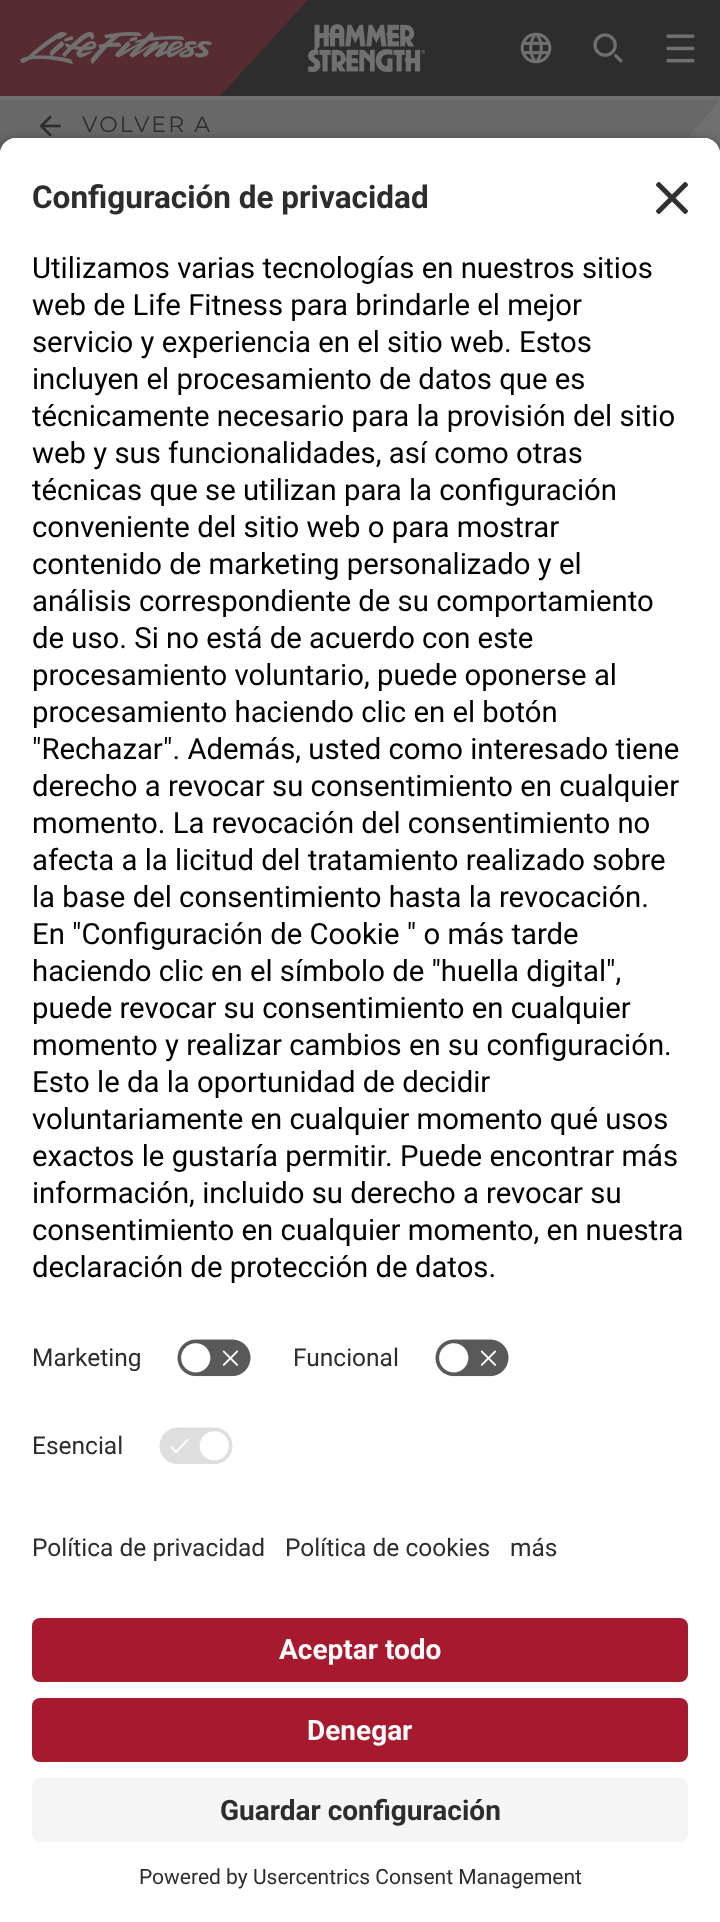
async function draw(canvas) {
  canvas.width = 720;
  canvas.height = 1922;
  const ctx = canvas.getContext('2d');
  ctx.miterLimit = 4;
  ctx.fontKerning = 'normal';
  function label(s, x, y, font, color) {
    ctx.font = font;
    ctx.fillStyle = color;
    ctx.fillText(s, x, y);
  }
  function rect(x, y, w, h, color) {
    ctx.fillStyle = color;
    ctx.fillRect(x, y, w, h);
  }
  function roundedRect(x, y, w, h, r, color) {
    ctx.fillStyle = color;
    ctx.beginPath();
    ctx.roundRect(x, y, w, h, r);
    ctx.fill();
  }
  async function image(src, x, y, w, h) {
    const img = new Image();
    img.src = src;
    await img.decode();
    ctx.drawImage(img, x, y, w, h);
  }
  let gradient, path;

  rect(0, 0, 720, 1922, '#707070');
  rect(220, 0, 500, 96, '#2c2d2c');
  ctx.fillStyle = '#562b32';
  path = new Path2D('M0 0V96H220L308 0Z');
  ctx.fill(path);
  await image('assets/img1.png', 20, 32, 192, 32);
  await image('assets/img2.png', 308, 24, 117, 48);
  await image('assets/img3.png', 520, 32, 32, 32);
  await image('assets/img4.png', 593, 33, 30, 30);
  await image('assets/img5.png', 666, 34, 29, 29);
  gradient = ctx.createLinearGradient(360, 100, 359, 616);
  gradient.addColorStop(0, '#686868');
  gradient.addColorStop(1, '#707070');
  ctx.fillStyle = gradient;
  path = new Path2D('M0 616H281L720 100H0Z');
  ctx.fill(path);
  await image('assets/img6.png', 39, 115, 22, 22);
  ctx.letterSpacing = '2.25px';
  label('VOLVER A', 82, 132, '22px Montserrat', '#2c2d2c');
  ctx.fillStyle = '#000000cc';
  ctx.filter = 'blur(7px)';
  ctx.beginPath();
  ctx.roundRect(0, 144, 720, 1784, 16);
  ctx.fill();
  ctx.filter = 'none';
  ctx.fillStyle = '#fff';
  ctx.beginPath();
  ctx.roundRect(0, 138, 720, 1364, [16, 16, 0, 0]);
  ctx.fill();
  ctx.beginPath();
  ctx.roundRect(0, 138, 720, 1188, [16, 16, 0, 0]);
  ctx.fill();
  ctx.letterSpacing = '0px';
  label('Configuración de privacidad', 32, 208, 'bold 31.5px Roboto', '#2c2d2c');
  await image('assets/img7.png', 656, 182, 32, 32);
  label('Utilizamos varias tecnologías en nuestros sitios', 32, 278, '29.3px Roboto', '#000');
  label('web de Life Fitness para brindarle el mejor', 32, 315, '29.3px Roboto', '#000');
  label('servicio y experiencia en el sitio web. Estos', 32, 352, '29.3px Roboto', '#000');
  label('incluyen el procesamiento de datos que es', 32, 389, '29.3px Roboto', '#000');
  label('técnicamente necesario para la provisión del sitio', 32, 426, '29.3px Roboto', '#000');
  label('web y sus funcionalidades, así como otras', 32, 463, '29.3px Roboto', '#000');
  label('técnicas que se utilizan para la configuración', 32, 500, '29.3px Roboto', '#000');
  label('conveniente del sitio web o para mostrar', 32, 537, '29.3px Roboto', '#000');
  label('contenido de marketing personalizado y el', 32, 574, '29.3px Roboto', '#000');
  label('análisis correspondiente de su comportamiento', 32, 611, '29.3px Roboto', '#000');
  label('de uso. Si no está de acuerdo con este', 32, 648, '29.3px Roboto', '#000');
  label('procesamiento voluntario, puede oponerse al', 32, 685, '29.3px Roboto', '#000');
  label('procesamiento haciendo clic en el botón', 32, 722, '29.3px Roboto', '#000');
  label('"Rechazar". Además, usted como interesado tiene', 32, 759, '29.3px Roboto', '#000');
  label('derecho a revocar su consentimiento en cualquier', 32, 796, '29.3px Roboto', '#000');
  label('momento. La revocación del consentimiento no', 32, 833, '29.3px Roboto', '#000');
  label('afecta a la licitud del tratamiento realizado sobre', 32, 870, '29.3px Roboto', '#000');
  label('la base del consentimiento hasta la revocación.', 32, 907, '29.3px Roboto', '#000');
  label('En "Configuración de Cookie " o más tarde', 32, 944, '29.3px Roboto', '#000');
  label('haciendo clic en el símbolo de "huella digital",', 32, 981, '29.3px Roboto', '#000');
  label('puede revocar su consentimiento en cualquier', 32, 1018, '29.3px Roboto', '#000');
  label('momento y realizar cambios en su configuración.', 32, 1055, '29.3px Roboto', '#000');
  label('Esto le da la oportunidad de decidir', 32, 1092, '29.3px Roboto', '#000');
  label('voluntariamente en cualquier momento qué usos', 32, 1129, '29.3px Roboto', '#000');
  label('exactos le gustaría permitir. Puede encontrar más', 32, 1166, '29.3px Roboto', '#000');
  label('información, incluido su derecho a revocar su', 32, 1203, '29.3px Roboto', '#000');
  label('consentimiento en cualquier momento, en nuestra', 32, 1240, '29.3px Roboto', '#000');
  label('declaración de protección de datos.', 32, 1277, '29.3px Roboto', '#000');
  label('Marketing', 32, 1366, '24.5px Roboto', '#2c2d2c');
  await image('assets/img8.png', 177, 1339, 74, 38);
  label('Funcional', 293, 1366, '24.5px Roboto', '#2c2d2c');
  await image('assets/img8.png', 435, 1339, 74, 38);
  label('Esencial', 32, 1454, '24.5px Roboto', '#2c2d2c');
  await image('assets/img9.png', 159, 1427, 74, 37);
  rect(0, 1502, 720, 420, '#fff');
  label('Política de privacidad', 32, 1556, '24.5px Roboto', '#2c2d2c');
  label('Política de cookies', 285, 1556, '24.5px Roboto', '#2c2d2c');
  label('más', 510, 1556, '24.5px Roboto', '#2c2d2c');
  roundedRect(32, 1618, 656, 64, 8, '#a6192e');
  label('Aceptar todo', 279, 1659, 'bold 28px Roboto', '#fafafa');
  roundedRect(32, 1698, 656, 64, 8, '#a6192e');
  label('Denegar', 307, 1740, 'bold 28px Roboto', '#fafafa');
  roundedRect(32, 1778, 656, 64, 8, '#f5f5f5');
  label('Guardar configuración', 220, 1820, 'bold 28px Roboto', '#2c2d2c');
  label('Powered by Usercentrics Consent Management', 139, 1884, '21px Roboto', '#2c2d2c');
}

draw(document.querySelector('canvas'));
